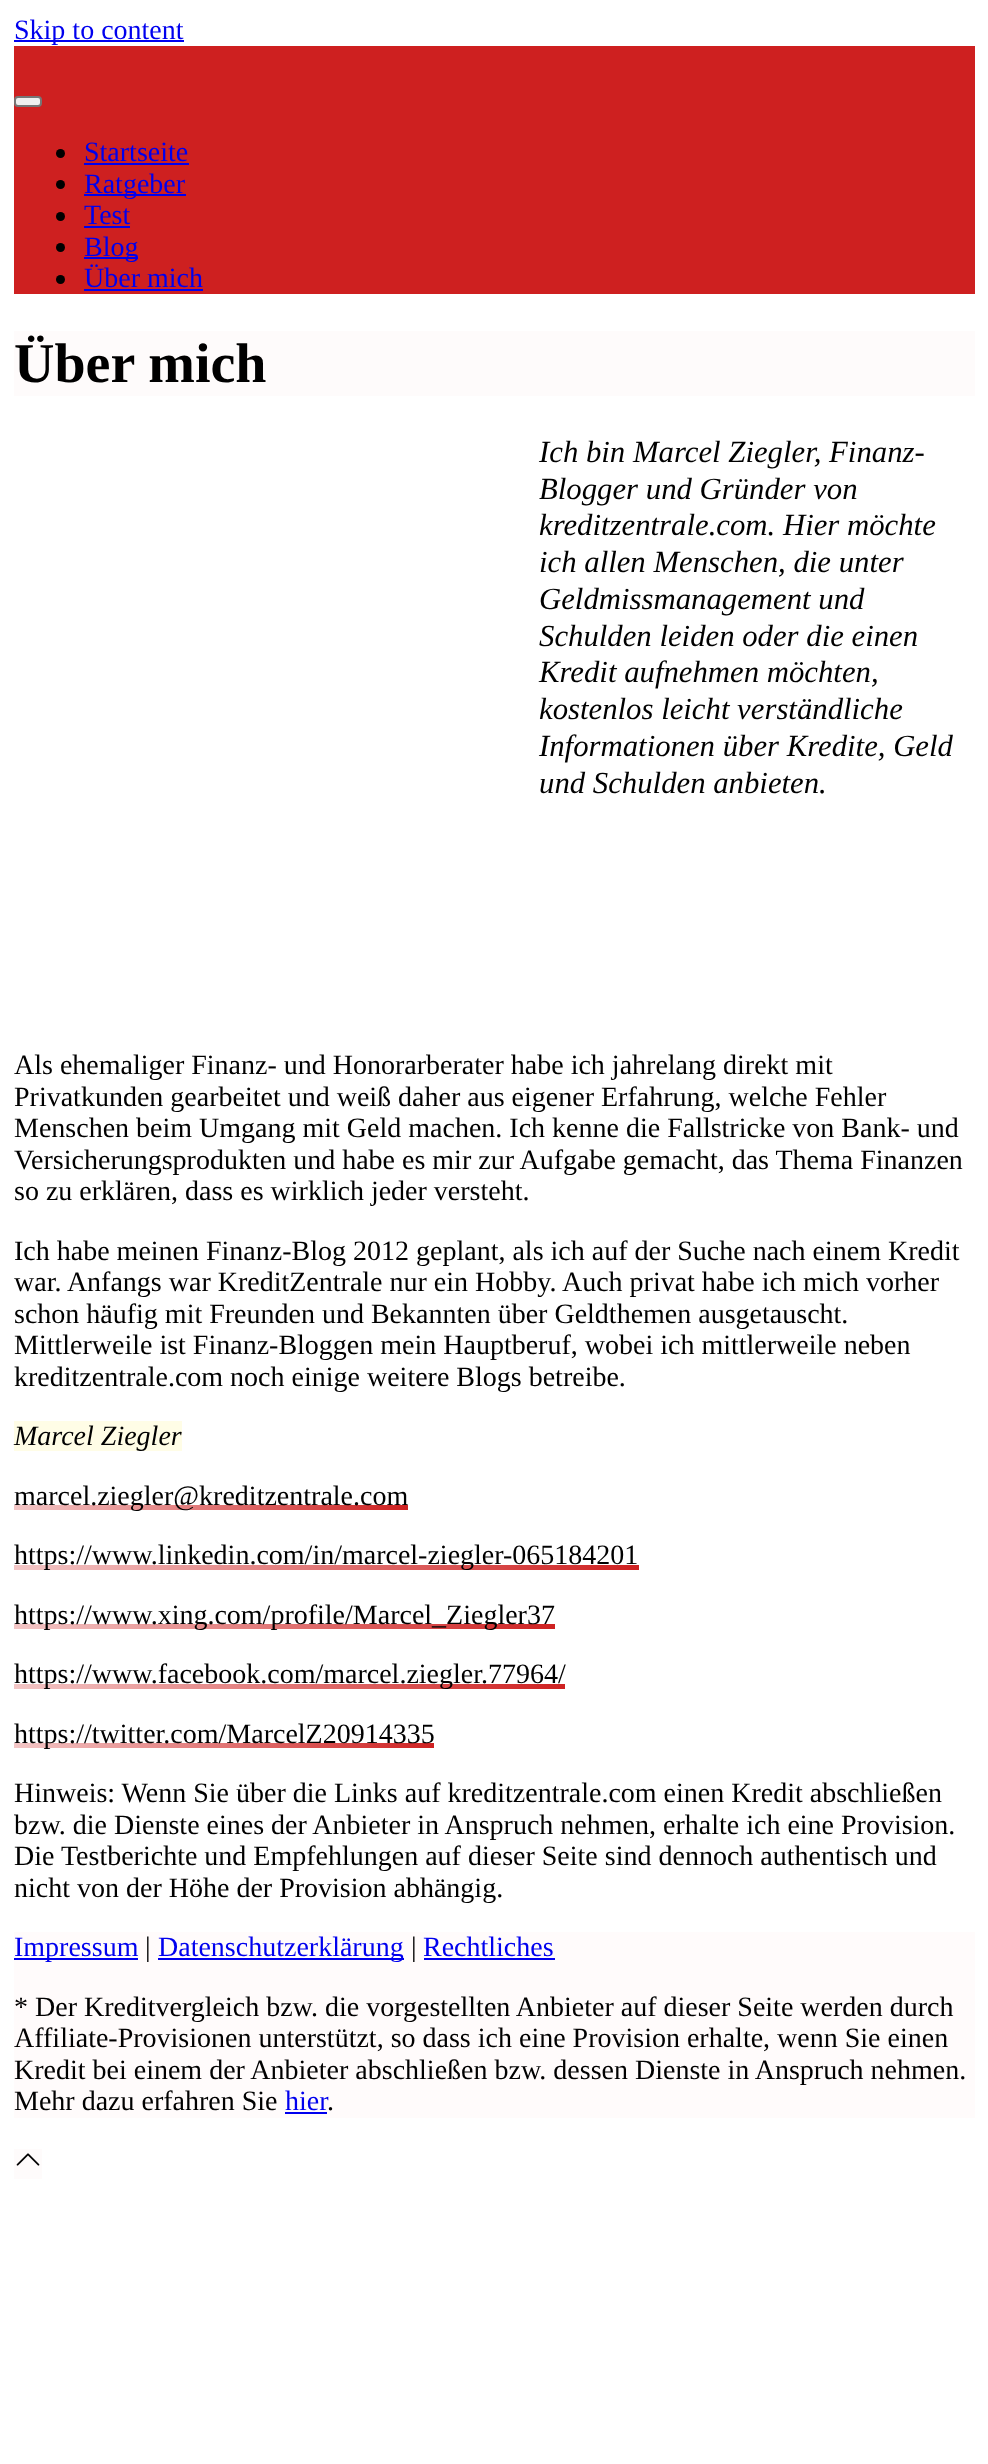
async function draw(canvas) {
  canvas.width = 988;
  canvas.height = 2464;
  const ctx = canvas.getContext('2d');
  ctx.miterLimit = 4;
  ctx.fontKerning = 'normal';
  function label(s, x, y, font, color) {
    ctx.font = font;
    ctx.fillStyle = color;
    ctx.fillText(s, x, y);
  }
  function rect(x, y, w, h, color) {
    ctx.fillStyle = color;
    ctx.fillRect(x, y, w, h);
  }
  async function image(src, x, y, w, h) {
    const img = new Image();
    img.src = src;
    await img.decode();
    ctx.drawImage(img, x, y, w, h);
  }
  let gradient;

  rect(0, 0, 988, 2464, '#fff');
  rect(14, 40, 170, 2, '#00e');
  label('Skip to content', 14, 39, '28px Liberation Serif', '#00e');
  rect(14, 46, 961, 248, '#ce2020');
  ctx.fillStyle = '#efefef';
  ctx.beginPath();
  ctx.roundRect(15, 97, 26, 9, 3);
  ctx.fill();
  ctx.strokeStyle = '#767676';
  ctx.lineWidth = 2;
  ctx.stroke();
  ctx.fillStyle = '#000';
  ctx.beginPath();
  ctx.arc(60.5, 153.5, 4.5, 0, 2 * Math.PI);
  ctx.fill();
  label('Startseite', 84, 161, '28px Liberation Serif', '#00e');
  rect(84, 163, 105, 2, '#00e');
  ctx.fillStyle = '#000';
  ctx.beginPath();
  ctx.arc(60.5, 184.5, 4.5, 0, 2 * Math.PI);
  ctx.fill();
  rect(84, 194, 102, 2, '#00e');
  label('Ratgeber', 84, 193, '28px Liberation Serif', '#00e');
  ctx.fillStyle = '#000';
  ctx.beginPath();
  ctx.arc(60.5, 216.5, 4.5, 0, 2 * Math.PI);
  ctx.fill();
  label('Test', 84, 224, '28px Liberation Serif', '#00e');
  rect(84, 226, 46, 2, '#00e');
  ctx.fillStyle = '#000';
  ctx.beginPath();
  ctx.arc(60.5, 247.5, 4.5, 0, 2 * Math.PI);
  ctx.fill();
  rect(84, 257, 54, 2, '#00e');
  label('Blog', 84, 256, '28px Liberation Serif', '#00e');
  ctx.fillStyle = '#000';
  ctx.beginPath();
  ctx.arc(60.5, 279.5, 4.5, 0, 2 * Math.PI);
  ctx.fill();
  label('Über mich', 84, 287, '28px Liberation Serif', '#00e');
  rect(84, 289, 119, 2, '#00e');
  rect(14, 331, 961, 65, '#fefbfb');
  label('Über mich', 14, 382, 'bold 56px Liberation Serif', '#000');
  label('Ich bin Marcel Ziegler, Finanz-', 539, 462, 'italic 30.75px Liberation Serif', '#000');
  label('Blogger und Gründer von', 539, 499, 'italic 30.75px Liberation Serif', '#000');
  label('kreditzentrale.com. Hier möchte', 539, 535, 'italic 30.75px Liberation Serif', '#000');
  label('ich allen Menschen, die unter', 539, 572, 'italic 30.75px Liberation Serif', '#000');
  label('Geldmissmanagement und', 539, 609, 'italic 30.75px Liberation Serif', '#000');
  label('Schulden leiden oder die einen', 539, 646, 'italic 30.75px Liberation Serif', '#000');
  label('Kredit aufnehmen möchten,', 539, 682, 'italic 30.75px Liberation Serif', '#000');
  label('kostenlos leicht verständliche', 539, 719, 'italic 30.75px Liberation Serif', '#000');
  label('Informationen über Kredite, Geld', 539, 756, 'italic 30.75px Liberation Serif', '#000');
  label('und Schulden anbieten.', 539, 793, 'italic 30.75px Liberation Serif', '#000');
  label('Als ehemaliger Finanz- und Honorarberater habe ich jahrelang direkt mit', 14, 1074, '28px Liberation Serif', '#000');
  label('Privatkunden gearbeitet und weiß daher aus eigener Erfahrung, welche Fehler', 14, 1106, '28px Liberation Serif', '#000');
  label('Menschen beim Umgang mit Geld machen. Ich kenne die Fallstricke von Bank- und', 14, 1137, '28px Liberation Serif', '#000');
  label('Versicherungsprodukten und habe es mir zur Aufgabe gemacht, das Thema Finanzen', 14, 1169, '28px Liberation Serif', '#000');
  label('so zu erklären, dass es wirklich jeder versteht.', 14, 1200, '28px Liberation Serif', '#000');
  label('Ich habe meinen Finanz-Blog 2012 geplant, als ich auf der Suche nach einem Kredit', 14, 1260, '28px Liberation Serif', '#000');
  label('war. Anfangs war KreditZentrale nur ein Hobby. Auch privat habe ich mich vorher', 14, 1291, '28px Liberation Serif', '#000');
  label('schon häufig mit Freunden und Bekannten über Geldthemen ausgetauscht.', 14, 1323, '28px Liberation Serif', '#000');
  label('Mittlerweile ist Finanz-Bloggen mein Hauptberuf, wobei ich mittlerweile neben', 14, 1354, '28px Liberation Serif', '#000');
  label('kreditzentrale.com noch einige weitere Blogs betreibe.', 14, 1386, '28px Liberation Serif', '#000');
  rect(14, 1421, 168, 30, '#fffde6');
  label('Marcel Ziegler', 14, 1445, 'italic 28px Liberation Serif', '#000');
  gradient = ctx.createLinearGradient(62, 1423, 360, 1595);
  gradient.addColorStop(0, '#f3c7c7');
  gradient.addColorStop(1, '#ce2020');
  ctx.fillStyle = gradient;
  ctx.fillRect(14, 1505, 394, 5);
  label('marcel.ziegler@kreditzentrale.com', 14, 1505, '28px Liberation Serif', '#000');
  gradient = ctx.createLinearGradient(91, 1432, 562, 1705);
  gradient.addColorStop(0, '#f3c7c7');
  gradient.addColorStop(1, '#ce2020');
  ctx.fillStyle = gradient;
  ctx.fillRect(14, 1565, 625, 5);
  label('https://www.linkedin.com/in/marcel-ziegler-065184201', 14, 1564, '28px Liberation Serif', '#000');
  gradient = ctx.createLinearGradient(80, 1510, 489, 1746);
  gradient.addColorStop(0, '#f3c7c7');
  gradient.addColorStop(1, '#ce2020');
  ctx.fillStyle = gradient;
  ctx.fillRect(14, 1624, 541, 5);
  label('https://www.xing.com/profile/Marcel_Ziegler37', 14, 1624, '28px Liberation Serif', '#000');
  gradient = ctx.createLinearGradient(81, 1567, 498, 1808);
  gradient.addColorStop(0, '#f3c7c7');
  gradient.addColorStop(1, '#ce2020');
  ctx.fillStyle = gradient;
  ctx.fillRect(14, 1684, 551, 5);
  label('https://www.facebook.com/marcel.ziegler.77964/', 14, 1683, '28px Liberation Serif', '#000');
  gradient = ctx.createLinearGradient(65, 1655, 383, 1839);
  gradient.addColorStop(0, '#f3c7c7');
  gradient.addColorStop(1, '#ce2020');
  ctx.fillStyle = gradient;
  ctx.fillRect(14, 1743, 420, 5);
  label('https://twitter.com/MarcelZ20914335', 14, 1743, '28px Liberation Serif', '#000');
  label('Hinweis: Wenn Sie über die Links auf kreditzentrale.com einen Kredit abschließen', 14, 1802, '28px Liberation Serif', '#000');
  label('bzw. die Dienste eines der Anbieter in Anspruch nehmen, erhalte ich eine Provision.', 14, 1834, '28px Liberation Serif', '#000');
  label('Die Testberichte und Empfehlungen auf dieser Seite sind dennoch authentisch und', 14, 1865, '28px Liberation Serif', '#000');
  label('nicht von der Höhe der Provision abhängig.', 14, 1897, '28px Liberation Serif', '#000');
  rect(14, 1932, 961, 186, '#fffbfb');
  rect(14, 1958, 124, 2, '#00e');
  label('Impressum', 14, 1956, '28px Liberation Serif', '#00e');
  label('|', 145, 1956, '28px Liberation Serif', '#000');
  rect(158, 1958, 246, 2, '#00e');
  label('Datenschutzerklärung', 158, 1956, '28px Liberation Serif', '#00e');
  label('|', 411, 1956, '28px Liberation Serif', '#000');
  label('Rechtliches', 423, 1956, '28px Liberation Serif', '#00e');
  rect(424, 1958, 131, 2, '#00e');
  label('* Der Kreditvergleich bzw. die vorgestellten Anbieter auf dieser Seite werden durch', 14, 2016, '28px Liberation Serif', '#000');
  label('Affiliate-Provisionen unterstützt, so dass ich eine Provision erhalte, wenn Sie einen', 14, 2047, '28px Liberation Serif', '#000');
  label('Kredit bei einem der Anbieter abschließen bzw. dessen Dienste in Anspruch nehmen.', 14, 2079, '28px Liberation Serif', '#000');
  label('Mehr dazu erfahren Sie', 14, 2110, '28px Liberation Serif', '#000');
  label('hier', 285, 2110, '28px Liberation Serif', '#00e');
  rect(285, 2112, 42, 2, '#00e');
  label('.', 327, 2110, '28px Liberation Serif', '#000');
  rect(14, 2149, 28, 30, '#fefbfb');
  await image('assets/img1.png', 16, 2153, 24, 13);
}

draw(document.querySelector('canvas'));
